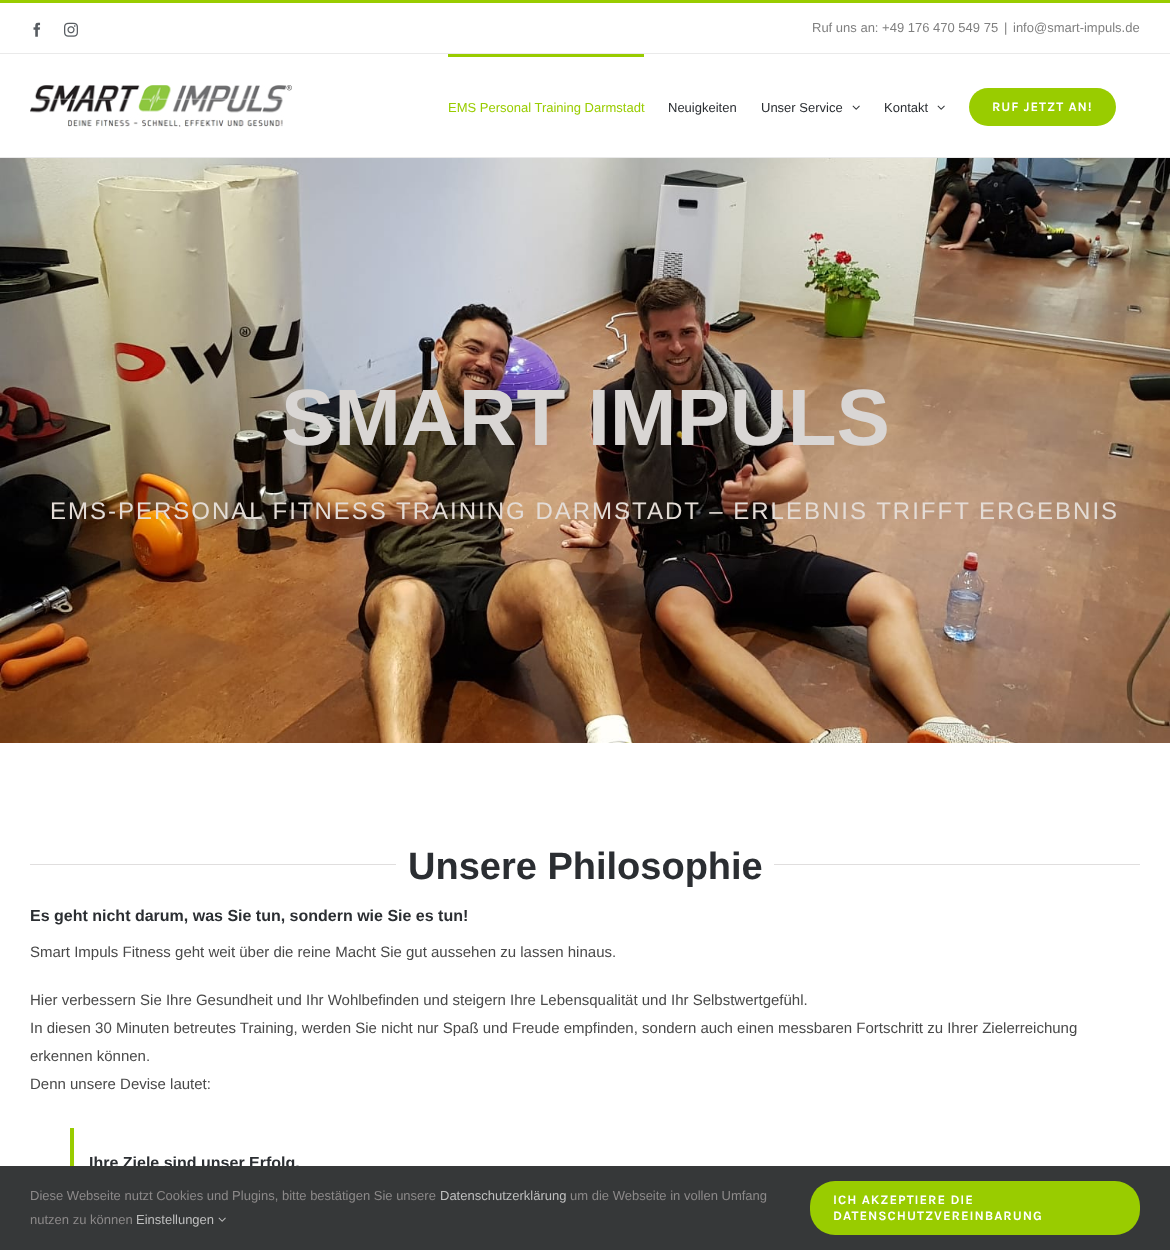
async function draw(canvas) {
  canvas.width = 1170;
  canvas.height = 1250;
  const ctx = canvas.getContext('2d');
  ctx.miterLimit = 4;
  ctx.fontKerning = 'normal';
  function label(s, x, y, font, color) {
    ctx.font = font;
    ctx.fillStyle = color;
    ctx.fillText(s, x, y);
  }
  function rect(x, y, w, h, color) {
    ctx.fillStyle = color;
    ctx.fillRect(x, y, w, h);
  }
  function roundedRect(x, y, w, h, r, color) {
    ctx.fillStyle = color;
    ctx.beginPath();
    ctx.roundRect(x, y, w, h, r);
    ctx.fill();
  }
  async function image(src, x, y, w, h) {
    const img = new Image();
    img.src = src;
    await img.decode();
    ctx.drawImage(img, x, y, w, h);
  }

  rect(0, 0, 1170, 1250, '#fff');
  rect(0, 0, 1170, 3, '#9c0');
  rect(0, 53, 1170, 1, '#eaeaea');
  await image('assets/img1.png', 33, 22, 8, 15);
  await image('assets/img2.png', 64, 22, 14, 15);
  label('Ruf uns an: +49 176 470 549 75', 812, 32, '13px Liberation Sans', '#808080');
  label('|', 1004, 32, '13px Liberation Sans', '#808080');
  label('info@smart-impuls.de', 1013, 32, '13px Liberation Sans', '#808080');
  rect(0, 157, 1170, 1, '#eaeaea');
  await image('assets/img3.png', 30, 85, 262, 42);
  rect(448, 54, 196, 3, '#9c0');
  label('EMS Personal Training Darmstadt', 448, 112, '13px Liberation Sans', '#9c0');
  label('Neuigkeiten', 668, 112, '13px Liberation Sans', '#2b2e32');
  label('Unser Service', 761, 112, '13px Liberation Sans', '#2b2e32');
  await image('assets/img4.png', 852, 105, 8, 5);
  label('Kontakt', 884, 112, '13px Liberation Sans', '#2b2e32');
  await image('assets/img4.png', 937, 105, 8, 5);
  roundedRect(969, 88, 147, 38, 19, '#9c0');
  ctx.letterSpacing = '1px';
  label('RUF JETZT AN!', 992, 111, 'bold 13px Karla', '#fff');
  await image('assets/img5.png', 0, 158, 1170, 585);
  ctx.letterSpacing = '0px';
  label('SMART IMPULS', 281, 445, 'bold 80px Liberation Sans', '#d9d6d4');
  ctx.letterSpacing = '2px';
  label('EMS-PERSONAL FITNESS TRAINING DARMSTADT – ERLEBNIS TRIFFT ERGEBNIS', 50, 519, '24px Liberation Sans', '#e4dcd6');
  rect(30, 864, 366, 1, '#e0dede');
  ctx.letterSpacing = '0px';
  label('Unsere Philosophie', 408, 879, 'bold 38px Liberation Sans', '#2b2e32');
  rect(774, 864, 366, 1, '#e0dede');
  label('Es geht nicht darum, was Sie tun, sondern wie Sie es tun!', 30, 921, 'bold 16px Liberation Sans', '#2b2e32');
  label('Smart Impuls Fitness geht weit über die reine Macht Sie gut aussehen zu lassen hinaus.', 30, 957, '15px Liberation Sans', '#494949');
  label('Hier verbessern Sie Ihre Gesundheit und Ihr Wohlbefinden und steigern Ihre Lebensqualität und Ihr Selbstwertgefühl.', 30, 1005, '15px Liberation Sans', '#494949');
  label('In diesen 30 Minuten betreutes Training, werden Sie nicht nur Spaß und Freude empfinden, sondern auch einen messbaren Fortschritt zu Ihrer Zielerreichung', 30, 1033, '15px Liberation Sans', '#494949');
  label('erkennen können.', 30, 1061, '15px Liberation Sans', '#494949');
  label('Denn unsere Devise lautet:', 30, 1089, '15px Liberation Sans', '#494949');
  rect(70, 1128, 4, 38, '#9c0');
  label('Ihre Ziele sind unser Erfolg.', 89, 1168, 'bold 16px Liberation Sans', '#2b2e32');
  rect(0, 1166, 1170, 84, '#363839');
  label('Diese Webseite nutzt Cookies und Plugins, bitte bestätigen Sie unsere', 30, 1200, '13px Liberation Sans', '#8c8989');
  label('Datenschutzerklärung', 440, 1200, '13px Liberation Sans', '#bfbfbf');
  label('um die Webseite in vollen Umfang', 570, 1200, '13px Liberation Sans', '#8c8989');
  label('nutzen zu können', 30, 1224, '13px Liberation Sans', '#8c8989');
  label('Einstellungen', 136, 1224, '13px Liberation Sans', '#bfbfbf');
  await image('assets/img6.png', 218, 1217, 8, 5);
  roundedRect(810, 1181, 330, 54, 25, '#9c0');
  ctx.letterSpacing = '1px';
  label('ICH AKZEPTIERE DIE', 833, 1204, 'bold 13px Karla', '#fff');
  label('DATENSCHUTZVEREINBARUNG', 833, 1220, 'bold 13px Karla', '#fff');
}

draw(document.querySelector('canvas'));
